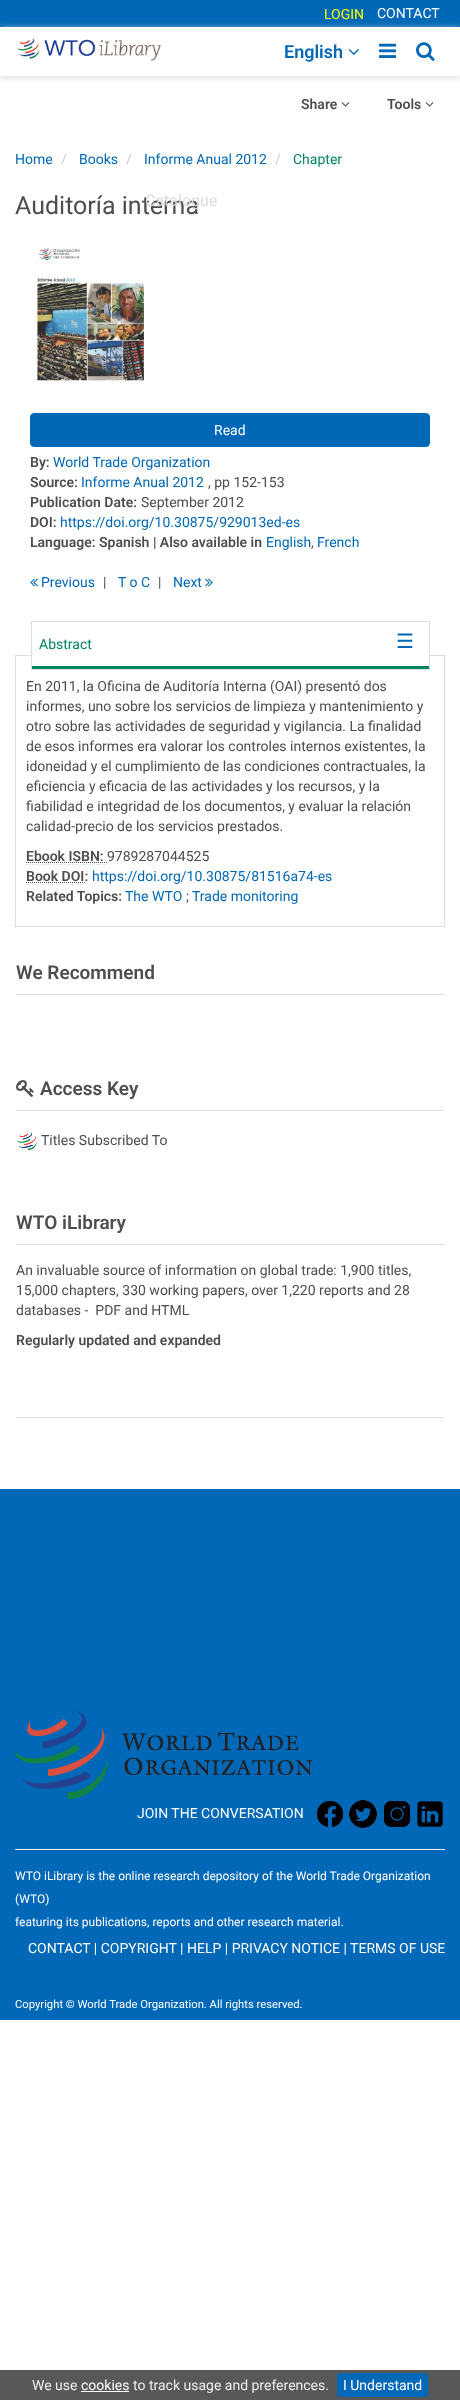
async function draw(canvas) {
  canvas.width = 460;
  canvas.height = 2400;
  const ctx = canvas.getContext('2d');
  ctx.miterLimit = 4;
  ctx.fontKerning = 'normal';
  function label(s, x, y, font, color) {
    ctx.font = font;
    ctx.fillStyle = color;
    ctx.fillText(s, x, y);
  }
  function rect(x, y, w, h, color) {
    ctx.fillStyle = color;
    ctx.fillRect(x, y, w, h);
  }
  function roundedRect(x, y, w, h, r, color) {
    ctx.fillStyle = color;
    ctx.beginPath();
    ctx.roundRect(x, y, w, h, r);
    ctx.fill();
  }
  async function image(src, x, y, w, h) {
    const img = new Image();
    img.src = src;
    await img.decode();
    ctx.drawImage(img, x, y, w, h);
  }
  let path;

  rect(0, 0, 460, 2400, '#fff');
  rect(0, 0, 460, 27, '#0068b6');
  ctx.save();
  path = new Path2D('M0 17H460V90H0ZM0 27H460V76H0Z');
  ctx.clip(path, 'evenodd');
  ctx.fillStyle = '#ddd';
  ctx.filter = 'blur(3.5px)';
  ctx.beginPath();
  ctx.rect(0, 29, 460, 49);
  ctx.fill();
  ctx.filter = 'none';
  ctx.restore();
  label('LOGIN', 324, 19, '14px Roboto', '#ff0');
  label('CONTACT', 377, 18, '14px Roboto', '#fff');
  await image('assets/img1.png', 17, 38, 144, 23);
  label('English', 284, 58, '600 18px Roboto', '#0068b6');
  await image('assets/img2.png', 348, 49, 11, 6);
  await image('assets/img3.png', 379, 43, 18, 15);
  await image('assets/img4.png', 416, 42, 19, 19);
  label('Auditoría interna', 15, 214, '25px Roboto', '#4d4d4d');
  label('Catalogue', 145, 206, '16px Roboto', '#dcdcdc');
  label('Share', 301, 109, '600 14px Roboto', '#4d4d4d');
  await image('assets/img5.png', 341, 102, 9, 5);
  label('Tools', 387, 109, '600 14px Roboto', '#4d4d4d');
  await image('assets/img5.png', 425, 102, 9, 5);
  label('Home', 15, 164, '14px Roboto', '#0068b6');
  label('/', 61, 164, '14px Roboto', '#ccc');
  label('Books', 79, 164, '14px Roboto', '#0068b6');
  label('/', 126, 164, '14px Roboto', '#ccc');
  label('Informe Anual 2012', 144, 164, '14px Roboto', '#0068b6');
  label('/', 275, 164, '14px Roboto', '#ccc');
  label('Chapter', 293, 164, '14px Roboto', '#008461');
  await image('assets/img6.png', 35, 247, 109, 135);
  ctx.fillStyle = '#0068b6';
  ctx.beginPath();
  ctx.roundRect(30.5, 413.5, 399, 33, 3.5);
  ctx.fill();
  ctx.strokeStyle = '#0068b6';
  ctx.stroke();
  label('Read', 214, 435, '14px Roboto', '#fff');
  label('By:', 30, 467, '600 14px Roboto', '#4d4d4d');
  label('World Trade Organization', 53, 467, '14px Roboto', '#0068b6');
  label('Source:', 30, 487, '600 14px Roboto', '#4d4d4d');
  label('Informe Anual 2012', 81, 487, '14px Roboto', '#0068b6');
  label(', pp 152-153', 208, 487, '14px Roboto', '#4d4d4d');
  label('Publication Date:', 30, 507, '600 14px Roboto', '#4d4d4d');
  label('September 2012', 141, 507, '14px Roboto', '#4d4d4d');
  label('DOI:', 30, 527, '600 14px Roboto', '#4d4d4d');
  label('https://doi.org/10.30875/929013ed-es', 60, 527, '14px Roboto', '#0068b6');
  label('Language: Spanish | Also available in', 30, 547, '600 14px Roboto', '#4d4d4d');
  label('English', 266, 547, '14px Roboto', '#0068b6');
  label(',', 311, 547, '14px Roboto', '#4d4d4d');
  label('French', 317, 547, '14px Roboto', '#0068b6');
  await image('assets/img7.png', 30, 578, 8, 9);
  label('Previous', 41, 587, '14px Roboto', '#0068b6');
  label('|', 103, 587, '14px Roboto', '#4d4d4d');
  label('T o C', 118, 587, '14px Roboto', '#0068b6');
  label('|', 158, 587, '14px Roboto', '#4d4d4d');
  label('Next', 173, 587, '14px Roboto', '#0068b6');
  await image('assets/img8.png', 205, 578, 8, 9);
  ctx.strokeStyle = '#ddd';
  ctx.strokeRect(15.5, 655.5, 429, 271);
  rect(32, 655, 397, 1, '#fff');
  ctx.strokeRect(31.5, 621.5, 398, 48);
  rect(32, 666, 397, 3, '#008461');
  label('Abstract', 39, 649, '14px Roboto', '#008461');
  label('☰', 396, 648, '20px DejaVu Sans', '#0068b6');
  label('En 2011, la Oficina de Auditoría Interna (OAI) presentó dos', 26, 691, '14px Roboto', '#4d4d4d');
  label('informes, uno sobre los servicios de limpieza y mantenimiento y', 26, 711, '14px Roboto', '#4d4d4d');
  label('otro sobre las actividades de seguridad y vigilancia. La finalidad', 26, 731, '14px Roboto', '#4d4d4d');
  label('de esos informes era valorar los controles internos existentes, la', 26, 751, '14px Roboto', '#4d4d4d');
  label('idoneidad y el cumplimiento de las condiciones contractuales, la', 26, 771, '14px Roboto', '#4d4d4d');
  label('eficiencia y eficacia de las actividades y los recursos, y la', 26, 791, '14px Roboto', '#4d4d4d');
  label('fiabilidad e integridad de los documentos, y evaluar la relación', 26, 811, '14px Roboto', '#4d4d4d');
  label('calidad-precio de los servicios prestados.', 26, 831, '14px Roboto', '#4d4d4d');
  label('Ebook ISBN:', 26, 861, '600 14px Roboto', '#4d4d4d');
  path = new Path2D('M26 864.5H107');
  ctx.strokeStyle = '#d5dfec';
  ctx.setLineDash([1, 1]);
  ctx.stroke(path);
  path = new Path2D('M26 862.5H107');
  ctx.strokeStyle = '#4d4d4d';
  ctx.stroke(path);
  label('9789287044525', 107, 861, '14px Roboto', '#4d4d4d');
  label('Book DOI:', 26, 881, '600 14px Roboto', '#4d4d4d');
  path = new Path2D('M26 884.5H84');
  ctx.strokeStyle = '#d5dfec';
  ctx.stroke(path);
  path = new Path2D('M26 882.5H84.5');
  ctx.strokeStyle = '#4d4d4d';
  ctx.stroke(path);
  label('https://doi.org/10.30875/81516a74-es', 92, 881, '14px Roboto', '#0068b6');
  label('Related Topics:', 26, 901, '600 14px Roboto', '#4d4d4d');
  label('The WTO', 125, 901, '14px Roboto', '#0068b6');
  label(';', 186, 901, '14px Roboto', '#4d4d4d');
  label('Trade monitoring', 192, 901, '14px Roboto', '#0068b6');
  rect(16, 994, 428, 1, '#ddd');
  label('We Recommend', 16, 979, '600 19px Roboto', '#4d4d4d');
  rect(16, 1110, 428, 1, '#ddd');
  await image('assets/img9.png', 16, 1080, 18, 17);
  label('Access Key', 40, 1095, '600 19px Roboto', '#4d4d4d');
  await image('assets/img10.png', 17, 1132, 20, 18);
  label('Titles Subscribed To', 41, 1145, '14px Roboto', '#4d4d4d');
  rect(16, 1244, 428, 1, '#ddd');
  label('WTO iLibrary', 16, 1229, '600 19px Roboto', '#4d4d4d');
  label('An invaluable source of information on global trade: 1,900 titles,', 16, 1275, '14px Roboto', '#4d4d4d');
  label('15,000 chapters, 330 working papers, over 1,220 reports and 28', 16, 1295, '14px Roboto', '#4d4d4d');
  label('databases -  PDF and HTML', 16, 1315, '14px Roboto', '#4d4d4d');
  label('Regularly updated and expanded', 16, 1345, '600 14px Roboto', '#4d4d4d');
  rect(16, 1417, 428, 1, '#ddd');
  rect(0, 1489, 460, 531, '#0068b6');
  await image('assets/img11.png', 15, 1711, 297, 88);
  label('JOIN THE CONVERSATION', 137, 1818, '14px Roboto', '#fff');
  await image('assets/img12.png', 317, 1801, 26, 26);
  await image('assets/img13.png', 349, 1800, 28, 28);
  await image('assets/img14.png', 384, 1801, 27, 26);
  await image('assets/img15.png', 417, 1801, 26, 26);
  rect(15, 1849, 430, 1, '#eee');
  label('WTO iLibrary is the online research depository of the World Trade Organization', 15, 1880, '12px Roboto', '#fff');
  label('(WTO)', 15, 1903, '12px Roboto', '#fff');
  label('featuring its publications, reports and other research material.', 15, 1926, '12px Roboto', '#fff');
  label('CONTACT | COPYRIGHT | HELP | PRIVACY NOTICE | TERMS OF USE', 28, 1953, '14px Roboto', '#fff');
  label('Copyright © World Trade Organization. All rights reserved.', 15, 2008, '11.25px Roboto', '#fff');
  rect(0, 2370, 460, 30, '#585858');
  label('We use', 32, 2390, '14px Roboto', '#eee');
  label('cookies', 81, 2390, '14px Roboto', '#fff');
  rect(81, 2391, 48, 1, '#fff');
  label('to track usage and preferences.', 133, 2390, '14px Roboto', '#eee');
  roundedRect(337, 2373, 91, 24, 3, '#0068b6');
  label('I Understand', 343, 2390, '14px Roboto', '#fff');
}

draw(document.querySelector('canvas'));
